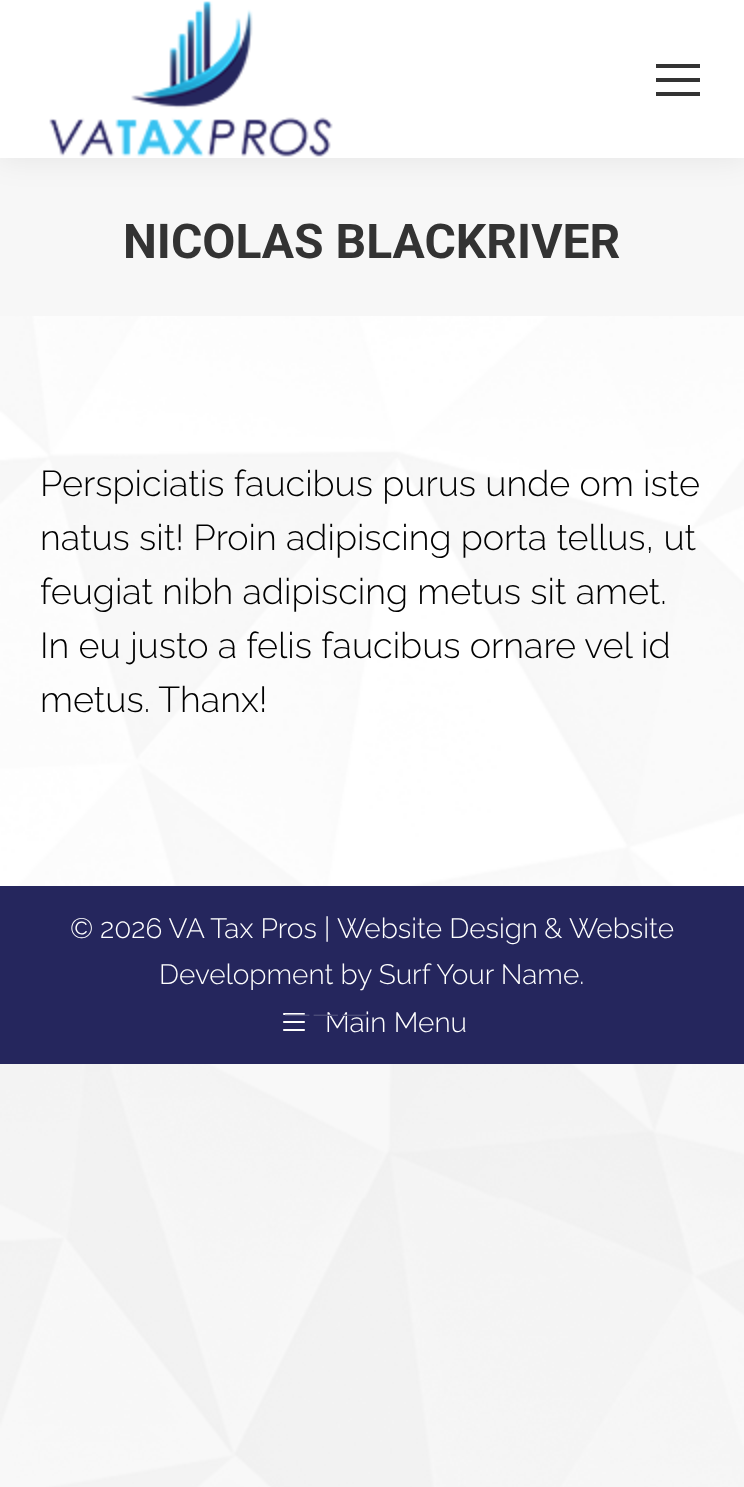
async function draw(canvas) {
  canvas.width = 744;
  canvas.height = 1487;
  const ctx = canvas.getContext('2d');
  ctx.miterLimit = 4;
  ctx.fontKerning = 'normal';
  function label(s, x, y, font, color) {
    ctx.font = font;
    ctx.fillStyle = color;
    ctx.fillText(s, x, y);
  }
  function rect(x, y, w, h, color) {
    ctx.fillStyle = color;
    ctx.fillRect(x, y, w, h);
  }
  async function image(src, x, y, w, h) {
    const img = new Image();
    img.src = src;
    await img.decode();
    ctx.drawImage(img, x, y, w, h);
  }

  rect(0, 0, 744, 1487, '#f7f7f7');
  await image('assets/img1.png', 0, 1064, 744, 423);
  rect(0, 316, 744, 570, '#fff');
  await image('assets/img2.png', 0, 316, 744, 570);
  ctx.fillStyle = '#00000012';
  ctx.filter = 'blur(15px)';
  ctx.beginPath();
  ctx.rect(-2, -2, 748, 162);
  ctx.fill();
  ctx.filter = 'none';
  rect(0, 0, 744, 158, '#fff');
  await image('assets/img3.png', 49, 1, 284, 156);
  rect(656, 64, 44, 4, '#333');
  rect(656, 78, 44, 4, '#333');
  rect(656, 92, 44, 4, '#333');
  label('NICOLAS BLACKRIVER', 123, 258, 'bold 48px Roboto', '#333');
  label('Perspiciatis faucibus purus unde om iste', 40, 496, '300 36px Raleway', '#000');
  label('natus sit! Proin adipiscing porta tellus, ut', 40, 550, '300 36px Raleway', '#000');
  label('feugiat nibh adipiscing metus sit amet.', 40, 604, '300 36px Raleway', '#000');
  label('In eu justo a felis faucibus ornare vel id', 40, 658, '300 36px Raleway', '#000');
  label('metus. Thanx!', 40, 712, '300 36px Raleway', '#000');
  rect(0, 886, 744, 178, '#25265d');
  label('©', 70, 938, '300 28px Raleway', '#fff');
  label('2026 VA Tax Pros |', 100, 938, '300 28px Raleway', '#fff');
  label('Website Design', 337, 938, '300 28px Raleway', '#fff');
  label('&', 544, 938, '300 28px Raleway', '#fff');
  label('Website', 569, 938, '300 28px Raleway', '#fff');
  label('Development by Surf Your Name.', 159, 984, '300 28px Raleway', '#fff');
  await image('assets/img4.png', 283, 1013, 22, 18);
  label('Main Menu', 325, 1032, '300 28px Raleway', '#fff');
  label('———', 283, 1024, '300 32px Raleway', '#4a4b78');
}

draw(document.querySelector('canvas'));
